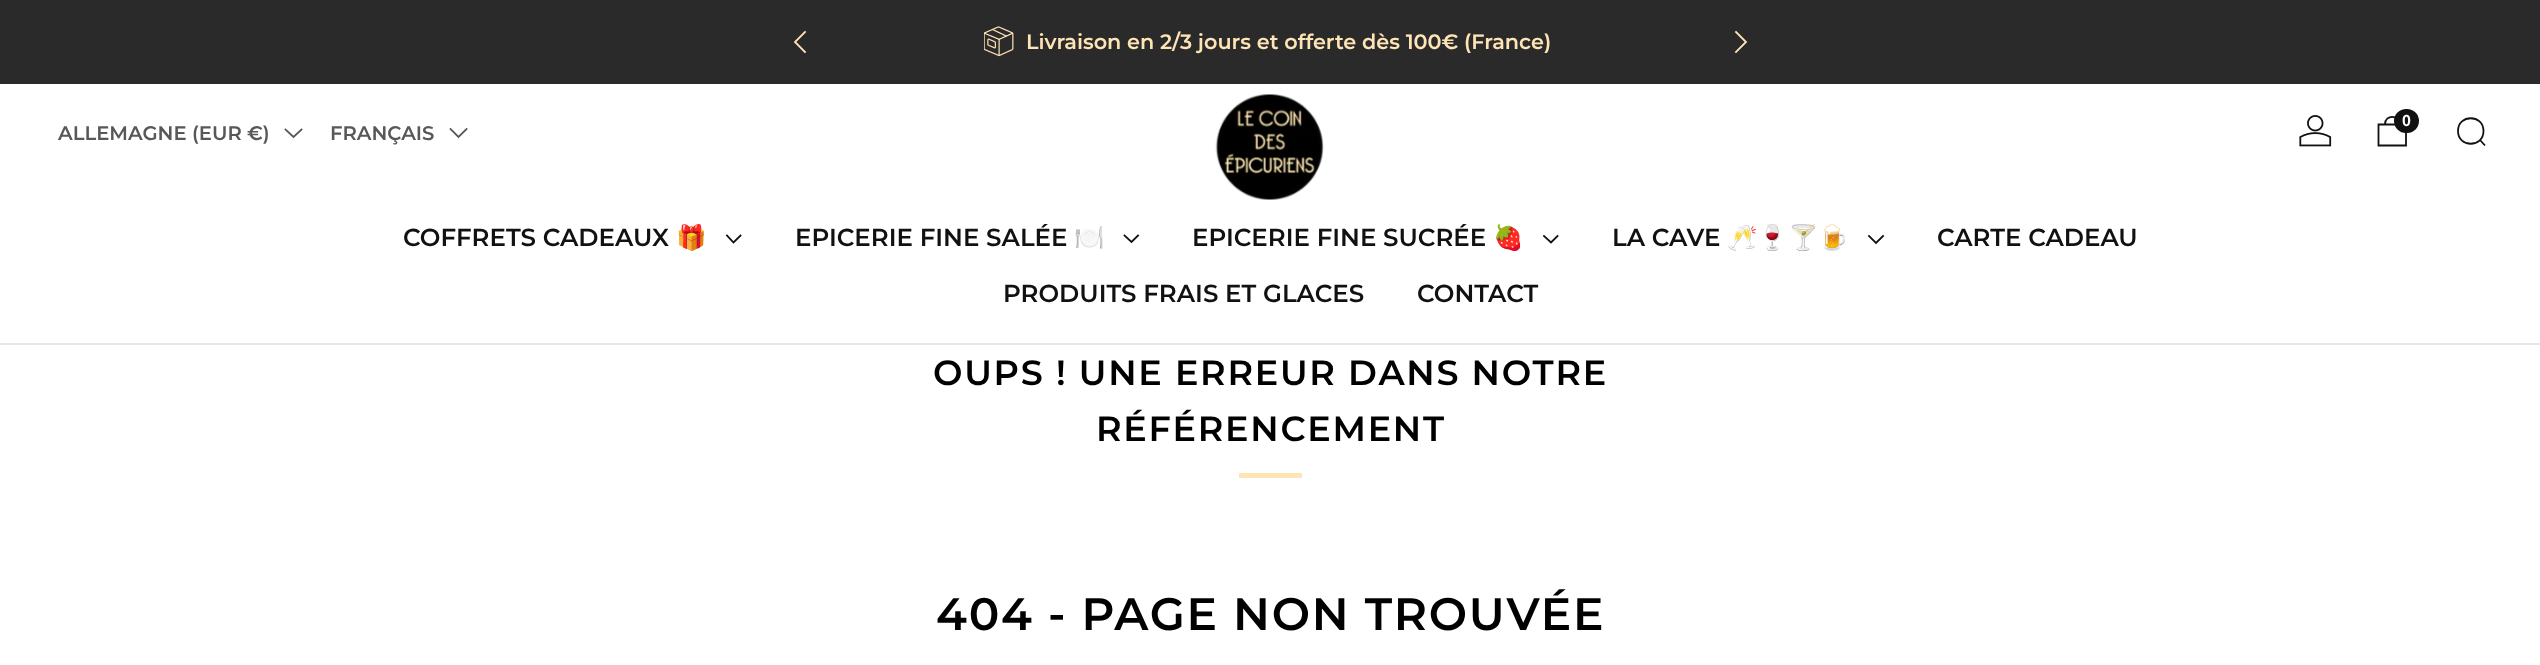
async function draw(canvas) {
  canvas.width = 2540;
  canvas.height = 665;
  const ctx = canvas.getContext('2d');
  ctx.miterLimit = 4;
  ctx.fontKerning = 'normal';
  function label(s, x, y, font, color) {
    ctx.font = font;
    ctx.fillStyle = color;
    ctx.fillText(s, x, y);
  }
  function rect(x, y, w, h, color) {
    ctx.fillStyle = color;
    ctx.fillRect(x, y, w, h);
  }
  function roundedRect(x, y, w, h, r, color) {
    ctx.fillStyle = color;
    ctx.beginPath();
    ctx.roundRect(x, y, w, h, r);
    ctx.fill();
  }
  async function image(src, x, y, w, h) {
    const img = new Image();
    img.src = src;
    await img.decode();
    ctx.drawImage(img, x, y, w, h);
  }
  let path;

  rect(0, 0, 2540, 665, '#fff');
  rect(0, 0, 2540, 84, '#2a2a2a');
  path = new Path2D('M805 52L795 42L805 32');
  ctx.strokeStyle = '#ffe4b5';
  ctx.lineWidth = 1.8;
  ctx.lineCap = 'square';
  ctx.stroke(path);
  await image('assets/img1.png', 984, 26, 30, 31);
  label('Livraison en 2/3 jours et offerte dès 100€ (France)', 1026, 49, '600 20.8px Montserrat', '#ffe4b5');
  path = new Path2D('M1736 32L1746 42L1736 52');
  ctx.stroke(path);
  rect(0, 343, 2540, 2, '#e7e7e7');
  await image('assets/img2.png', 1215, 94, 109, 106);
  await image('assets/img3.png', 2299, 115, 33, 32);
  path = new Path2D('M2399.5 124C2399.5 114.5 2385 114.5 2385 124M2378.5 124.5H2406V145.5H2378.5Z');
  ctx.strokeStyle = '#111';
  ctx.lineCap = 'butt';
  ctx.stroke(path);
  roundedRect(2394, 109, 25, 24, 12, '#111');
  label('0', 2402, 126, 'bold 16px Liberation Sans', '#fff');
  path = new Path2D('M2480 140L2485 145.5M2483.5 131C2483.5 148 2458 148 2458 131C2458 114 2483.5 114 2483.5 131Z');
  ctx.stroke(path);
  label('ALLEMAGNE (EUR €)', 58, 140, '600 19.6px Montserrat', '#585858');
  path = new Path2D('M301.5 129.5L293.5 137L285.5 129.5');
  ctx.strokeStyle = '#585858';
  ctx.lineCap = 'square';
  ctx.stroke(path);
  label('FRANÇAIS', 330, 140, '600 19.6px Montserrat', '#585858');
  path = new Path2D('M466.5 129L458.5 137L450.5 129');
  ctx.stroke(path);
  label('COFFRETS CADEAUX', 403, 246, '600 24.5px Montserrat', '#111');
  label('🎁', 676, 246, 'bold 24.5px Noto Color Emoji', '#111');
  path = new Path2D('M740.5 235.5L733.5 242.5L727 235.5');
  ctx.strokeStyle = '#111';
  ctx.stroke(path);
  label('EPICERIE FINE SALÉE', 795, 246, '600 24.5px Montserrat', '#111');
  label('🍽️', 1074, 246, 'bold 24.5px Noto Color Emoji', '#111');
  path = new Path2D('M1138 235.5L1131.5 242L1124.5 235.5');
  ctx.stroke(path);
  label('EPICERIE FINE SUCRÉE', 1192, 246, '600 24.5px Montserrat', '#111');
  label('🍓', 1493, 246, 'bold 24.5px Noto Color Emoji', '#111');
  path = new Path2D('M1557.5 236L1551 242.5L1544 236');
  ctx.stroke(path);
  label('LA CAVE', 1612, 246, '600 24.5px Montserrat', '#111');
  label('🥂🍷🍸🍺', 1727, 246, 'bold 24.5px Noto Color Emoji', '#111');
  path = new Path2D('M1883 236L1876 243L1869 236');
  ctx.stroke(path);
  label('CARTE CADEAU', 1937, 246, '600 24.5px Montserrat', '#111');
  label('PRODUITS FRAIS ET GLACES', 1003, 302, '600 24.5px Montserrat', '#111');
  label('CONTACT', 1417, 302, '600 24.5px Montserrat', '#111');
  ctx.letterSpacing = '1.75px';
  label('OUPS ! UNE ERREUR DANS NOTRE', 933, 385, '600 35px Montserrat', '#000');
  label('RÉFÉRENCEMENT', 1096, 441, '600 35px Montserrat', '#000');
  rect(1239, 473, 63, 5, '#ffe4b5');
  label('404 - PAGE NON TROUVÉE', 936, 630, '600 45.5px Montserrat', '#000');
}

draw(document.querySelector('canvas'));
